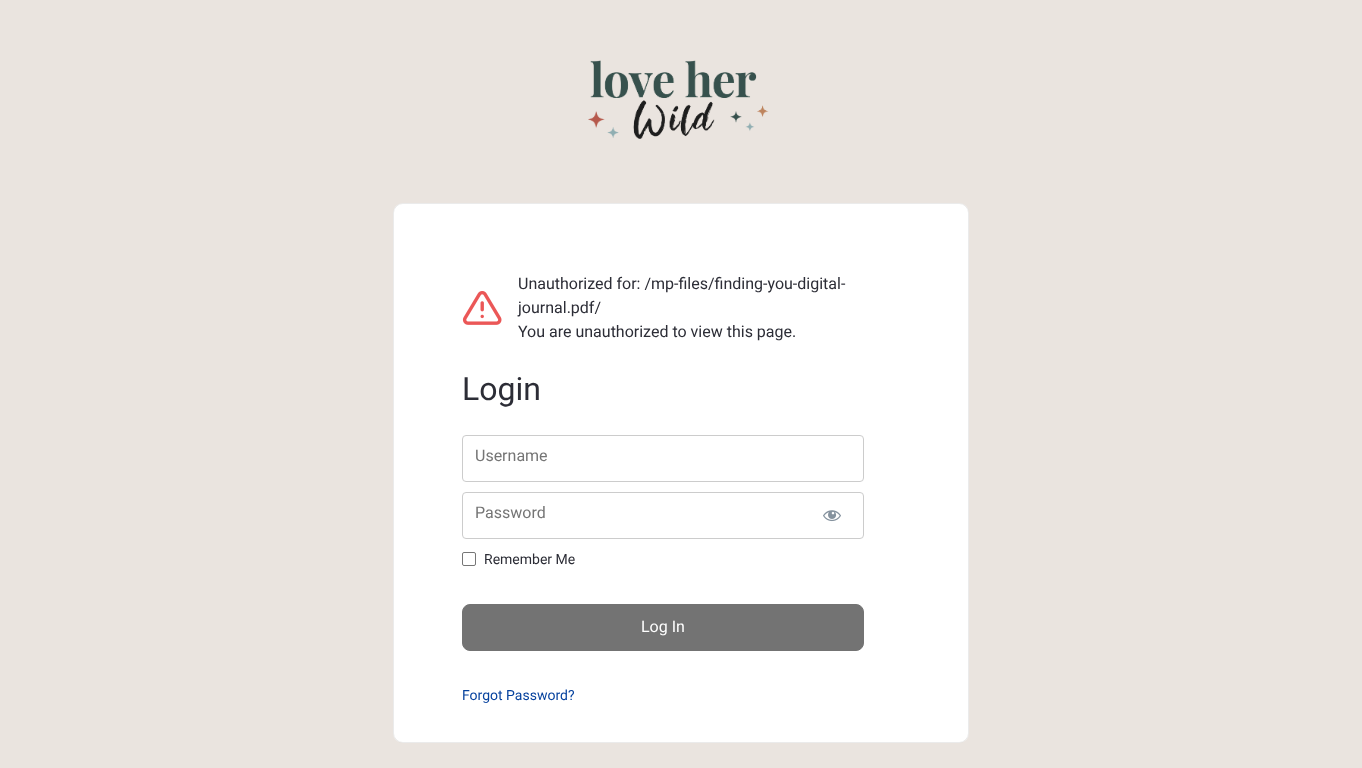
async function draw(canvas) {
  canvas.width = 1362;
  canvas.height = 768;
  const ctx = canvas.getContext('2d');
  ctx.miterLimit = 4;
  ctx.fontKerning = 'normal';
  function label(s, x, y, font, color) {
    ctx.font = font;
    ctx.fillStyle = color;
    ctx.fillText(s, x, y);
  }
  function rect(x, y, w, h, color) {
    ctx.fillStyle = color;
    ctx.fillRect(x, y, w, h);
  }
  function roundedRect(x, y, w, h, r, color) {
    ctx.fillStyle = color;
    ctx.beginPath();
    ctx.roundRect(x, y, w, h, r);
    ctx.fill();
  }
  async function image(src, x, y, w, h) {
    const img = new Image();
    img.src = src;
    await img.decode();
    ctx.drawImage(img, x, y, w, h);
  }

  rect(0, 0, 1362, 768, '#eae4df');
  await image('assets/img1.png', 588, 60, 181, 79);
  roundedRect(393, 203, 576, 540, 10, '#fff');
  ctx.beginPath();
  ctx.roundRect(393.5, 203.5, 575, 539, 9.5);
  ctx.strokeStyle = '#00000014';
  ctx.stroke();
  await image('assets/img2.png', 462, 291, 40, 34);
  label('Unauthorized for: /mp-files/finding-you-digital-', 518, 289, '16px Roboto', '#2c2d36');
  label('journal.pdf/', 518, 313, '16px Roboto', '#2c2d36');
  label('You are unauthorized to view this page.', 518, 337, '16px Roboto', '#2c2d36');
  label('Login', 462, 400, '32px Roboto', '#2c2d36');
  ctx.beginPath();
  ctx.roundRect(462.5, 435.5, 401, 46, 3.5);
  ctx.strokeStyle = '#ccc';
  ctx.stroke();
  label('Username', 475, 461, '16px Roboto', '#757575');
  ctx.beginPath();
  ctx.roundRect(462.5, 492.5, 401, 46, 3.5);
  ctx.stroke();
  await image('assets/img3.png', 823, 510, 18, 12);
  label('Password', 475, 518, '16px Roboto', '#757575');
  ctx.beginPath();
  ctx.roundRect(462.5, 552.5, 13, 13, 1.5);
  ctx.strokeStyle = '#767676';
  ctx.stroke();
  label('Remember Me', 484, 564, '14px Roboto', '#2c2d36');
  ctx.fillStyle = '#737373';
  ctx.beginPath();
  ctx.roundRect(462.5, 604.5, 401, 46, 7.5);
  ctx.fill();
  ctx.strokeStyle = '#737373';
  ctx.stroke();
  label('Log In', 641, 632, '16px Roboto', '#fff');
  label('Forgot Password?', 462, 700, '14px Roboto', '#06429e');
}

draw(document.querySelector('canvas'));
